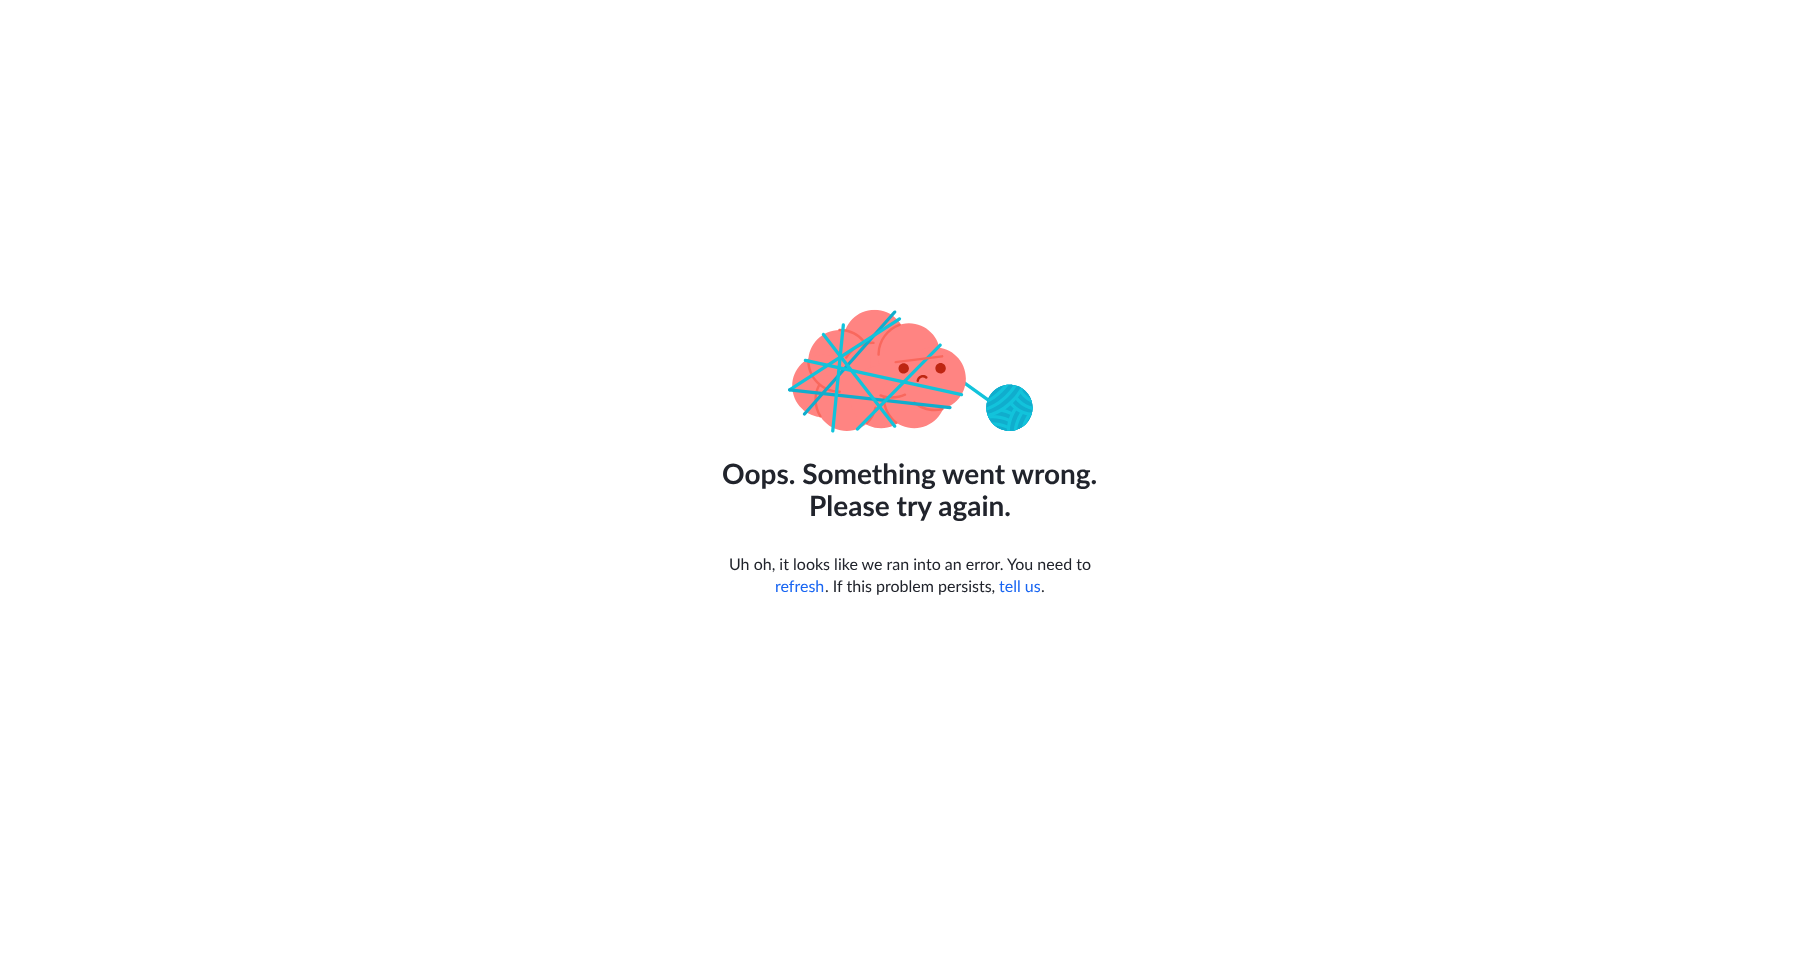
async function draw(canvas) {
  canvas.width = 1820;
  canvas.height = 966;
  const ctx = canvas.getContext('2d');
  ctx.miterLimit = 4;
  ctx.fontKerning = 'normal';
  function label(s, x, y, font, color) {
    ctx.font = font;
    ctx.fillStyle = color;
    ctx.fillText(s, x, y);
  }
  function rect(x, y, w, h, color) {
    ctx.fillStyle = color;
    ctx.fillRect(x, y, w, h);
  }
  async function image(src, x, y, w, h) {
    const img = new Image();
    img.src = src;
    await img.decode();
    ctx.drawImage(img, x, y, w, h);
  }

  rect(0, 0, 1820, 966, '#fff');
  await image('assets/img1.png', 788, 309, 245, 124);
  label('Oops. Something went wrong.', 722, 484, 'bold 28px Lato', '#21242c');
  label('Please try again.', 809, 516, 'bold 28px Lato', '#21242c');
  label('Uh oh, it looks like we ran into an error. You need to', 729, 570, '16px Lato', '#21242c');
  label('refresh', 775, 592, '16px Lato', '#1865f2');
  label('. If this problem persists,', 825, 592, '16px Lato', '#21242c');
  label('tell us', 999, 592, '16px Lato', '#1865f2');
  label('.', 1041, 592, '16px Lato', '#21242c');
}

draw(document.querySelector('canvas'));
